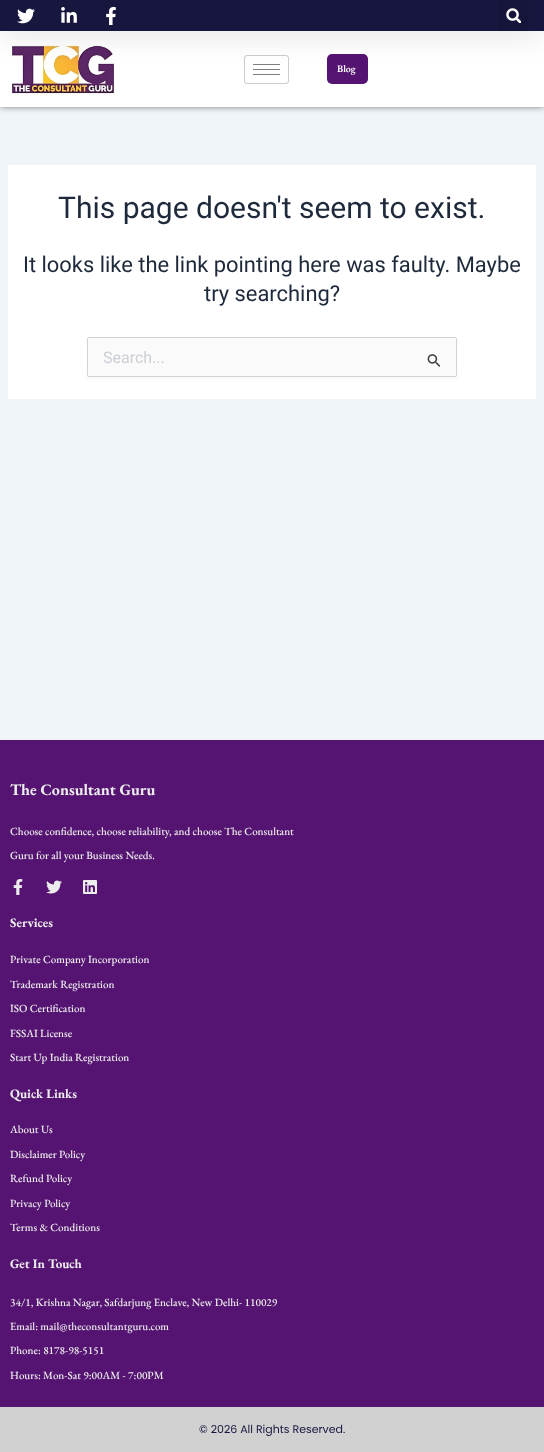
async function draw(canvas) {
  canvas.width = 544;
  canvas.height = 1452;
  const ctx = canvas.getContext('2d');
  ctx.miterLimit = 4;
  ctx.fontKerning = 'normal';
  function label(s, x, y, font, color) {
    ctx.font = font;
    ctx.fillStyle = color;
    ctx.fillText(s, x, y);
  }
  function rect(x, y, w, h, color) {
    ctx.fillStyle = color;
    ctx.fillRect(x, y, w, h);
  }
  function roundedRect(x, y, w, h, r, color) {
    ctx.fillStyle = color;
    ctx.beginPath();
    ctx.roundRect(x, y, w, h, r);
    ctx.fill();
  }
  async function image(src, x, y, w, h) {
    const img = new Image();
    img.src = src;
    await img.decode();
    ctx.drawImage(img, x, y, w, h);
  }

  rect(0, 0, 544, 1452, '#f0f5fa');
  ctx.fillStyle = '#00000080';
  ctx.filter = 'blur(3px)';
  ctx.beginPath();
  ctx.rect(0, 31, 544, 76);
  ctx.fill();
  ctx.filter = 'none';
  rect(0, 31, 544, 76, '#fff');
  await image('assets/img5.png', 12, 44, 103, 50);
  roundedRect(327, 54, 41, 30, 5, '#551472');
  ctx.fillStyle = '#0000001a';
  ctx.filter = 'blur(15px)';
  ctx.beginPath();
  ctx.rect(0, 5, 544, 31);
  ctx.fill();
  ctx.filter = 'none';
  rect(0, 0, 544, 31, '#16163f');
  await image('assets/img1.png', 17, 8, 18, 16);
  await image('assets/img2.png', 61, 7, 16, 16);
  await image('assets/img3.png', 106, 7, 10, 18);
  roundedRect(498, 0, 31, 31, 3, '#15153c');
  await image('assets/img4.png', 506, 8, 15, 15);
  ctx.beginPath();
  ctx.roundRect(244.5, 55.5, 44, 28, 2.5);
  ctx.strokeStyle = '#00000033';
  ctx.stroke();
  rect(253, 64, 27, 1, '#7f7f7f');
  rect(253, 69, 27, 1, '#7f7f7f');
  rect(253, 74, 27, 1, '#7f7f7f');
  label('Blog', 337, 72, '600 10px EB Garamond', '#fff');
  rect(8, 165, 528, 234, '#fff');
  label('This page doesn\'t seem to exist.', 58, 218, '30px Roboto', '#1e293b');
  label('It looks like the link pointing here was faulty. Maybe', 23, 272, '21.9px Roboto', '#1e293b');
  label('try searching?', 204, 301, '21.9px Roboto', '#1e293b');
  ctx.fillStyle = '#0000000d';
  ctx.filter = 'blur(1px)';
  ctx.beginPath();
  ctx.roundRect(87, 338, 370, 40, 2);
  ctx.fill();
  ctx.filter = 'none';
  ctx.fillStyle = '#fafafa';
  ctx.beginPath();
  ctx.roundRect(87.5, 337.5, 369, 39, 1.5);
  ctx.fill();
  ctx.strokeStyle = '#d1d5db';
  ctx.stroke();
  label('Search...', 103, 363, '16px Roboto', '#cbcfd5');
  await image('assets/img6.png', 427, 354, 13, 13);
  rect(0, 740, 544, 667, '#551472');
  label('The Consultant Guru', 10, 795, 'bold 16px EB Garamond', '#ededed');
  label('Choose confidence, choose reliability, and choose The Consultant', 10, 835, '500 11px EB Garamond', '#ededed');
  label('Guru for all your Business Needs.', 10, 859, '500 11px EB Garamond', '#ededed');
  await image('assets/img7.png', 13, 879, 10, 16);
  await image('assets/img8.png', 46, 880, 16, 14);
  await image('assets/img9.png', 83, 880, 14, 14);
  label('Services', 10, 927, 'bold 13px EB Garamond', '#ededed');
  label('Private Company Incorporation', 10, 963, '500 11px EB Garamond', '#ededed');
  label('Trademark Registration', 10, 988, '500 11px EB Garamond', '#ededed');
  label('ISO Certification', 10, 1012, '500 11px EB Garamond', '#ededed');
  label('FSSAI License', 10, 1037, '500 11px EB Garamond', '#ededed');
  label('Start Up India Registration', 10, 1061, '500 11px EB Garamond', '#ededed');
  label('Quick Links', 10, 1098, 'bold 13px EB Garamond', '#ededed');
  label('About Us', 10, 1133, '500 11px EB Garamond', '#ededed');
  label('Disclaimer Policy', 10, 1158, '500 11px EB Garamond', '#ededed');
  label('Refund Policy', 10, 1182, '500 11px EB Garamond', '#ededed');
  label('Privacy Policy', 10, 1207, '500 11px EB Garamond', '#ededed');
  label('Terms & Conditions', 10, 1231, '500 11px EB Garamond', '#ededed');
  label('Get In Touch', 10, 1268, 'bold 13px EB Garamond', '#ededed');
  label('34/1, Krishna Nagar, Safdarjung Enclave, New Delhi- 110029', 10, 1306, '500 11px EB Garamond', '#ededed');
  label('Email: mail@theconsultantguru.com', 10, 1330, '500 11px EB Garamond', '#ededed');
  label('Phone: 8178-98-5151', 10, 1354, '500 11px EB Garamond', '#ededed');
  label('Hours: Mon-Sat 9:00AM - 7:00PM', 10, 1379, '500 11px EB Garamond', '#ededed');
  rect(0, 1407, 544, 45, '#d1d1d1');
  label('© 2026 All Rights Reserved.', 199, 1433, '11px Poppins', '#16163f');
}

draw(document.querySelector('canvas'));
